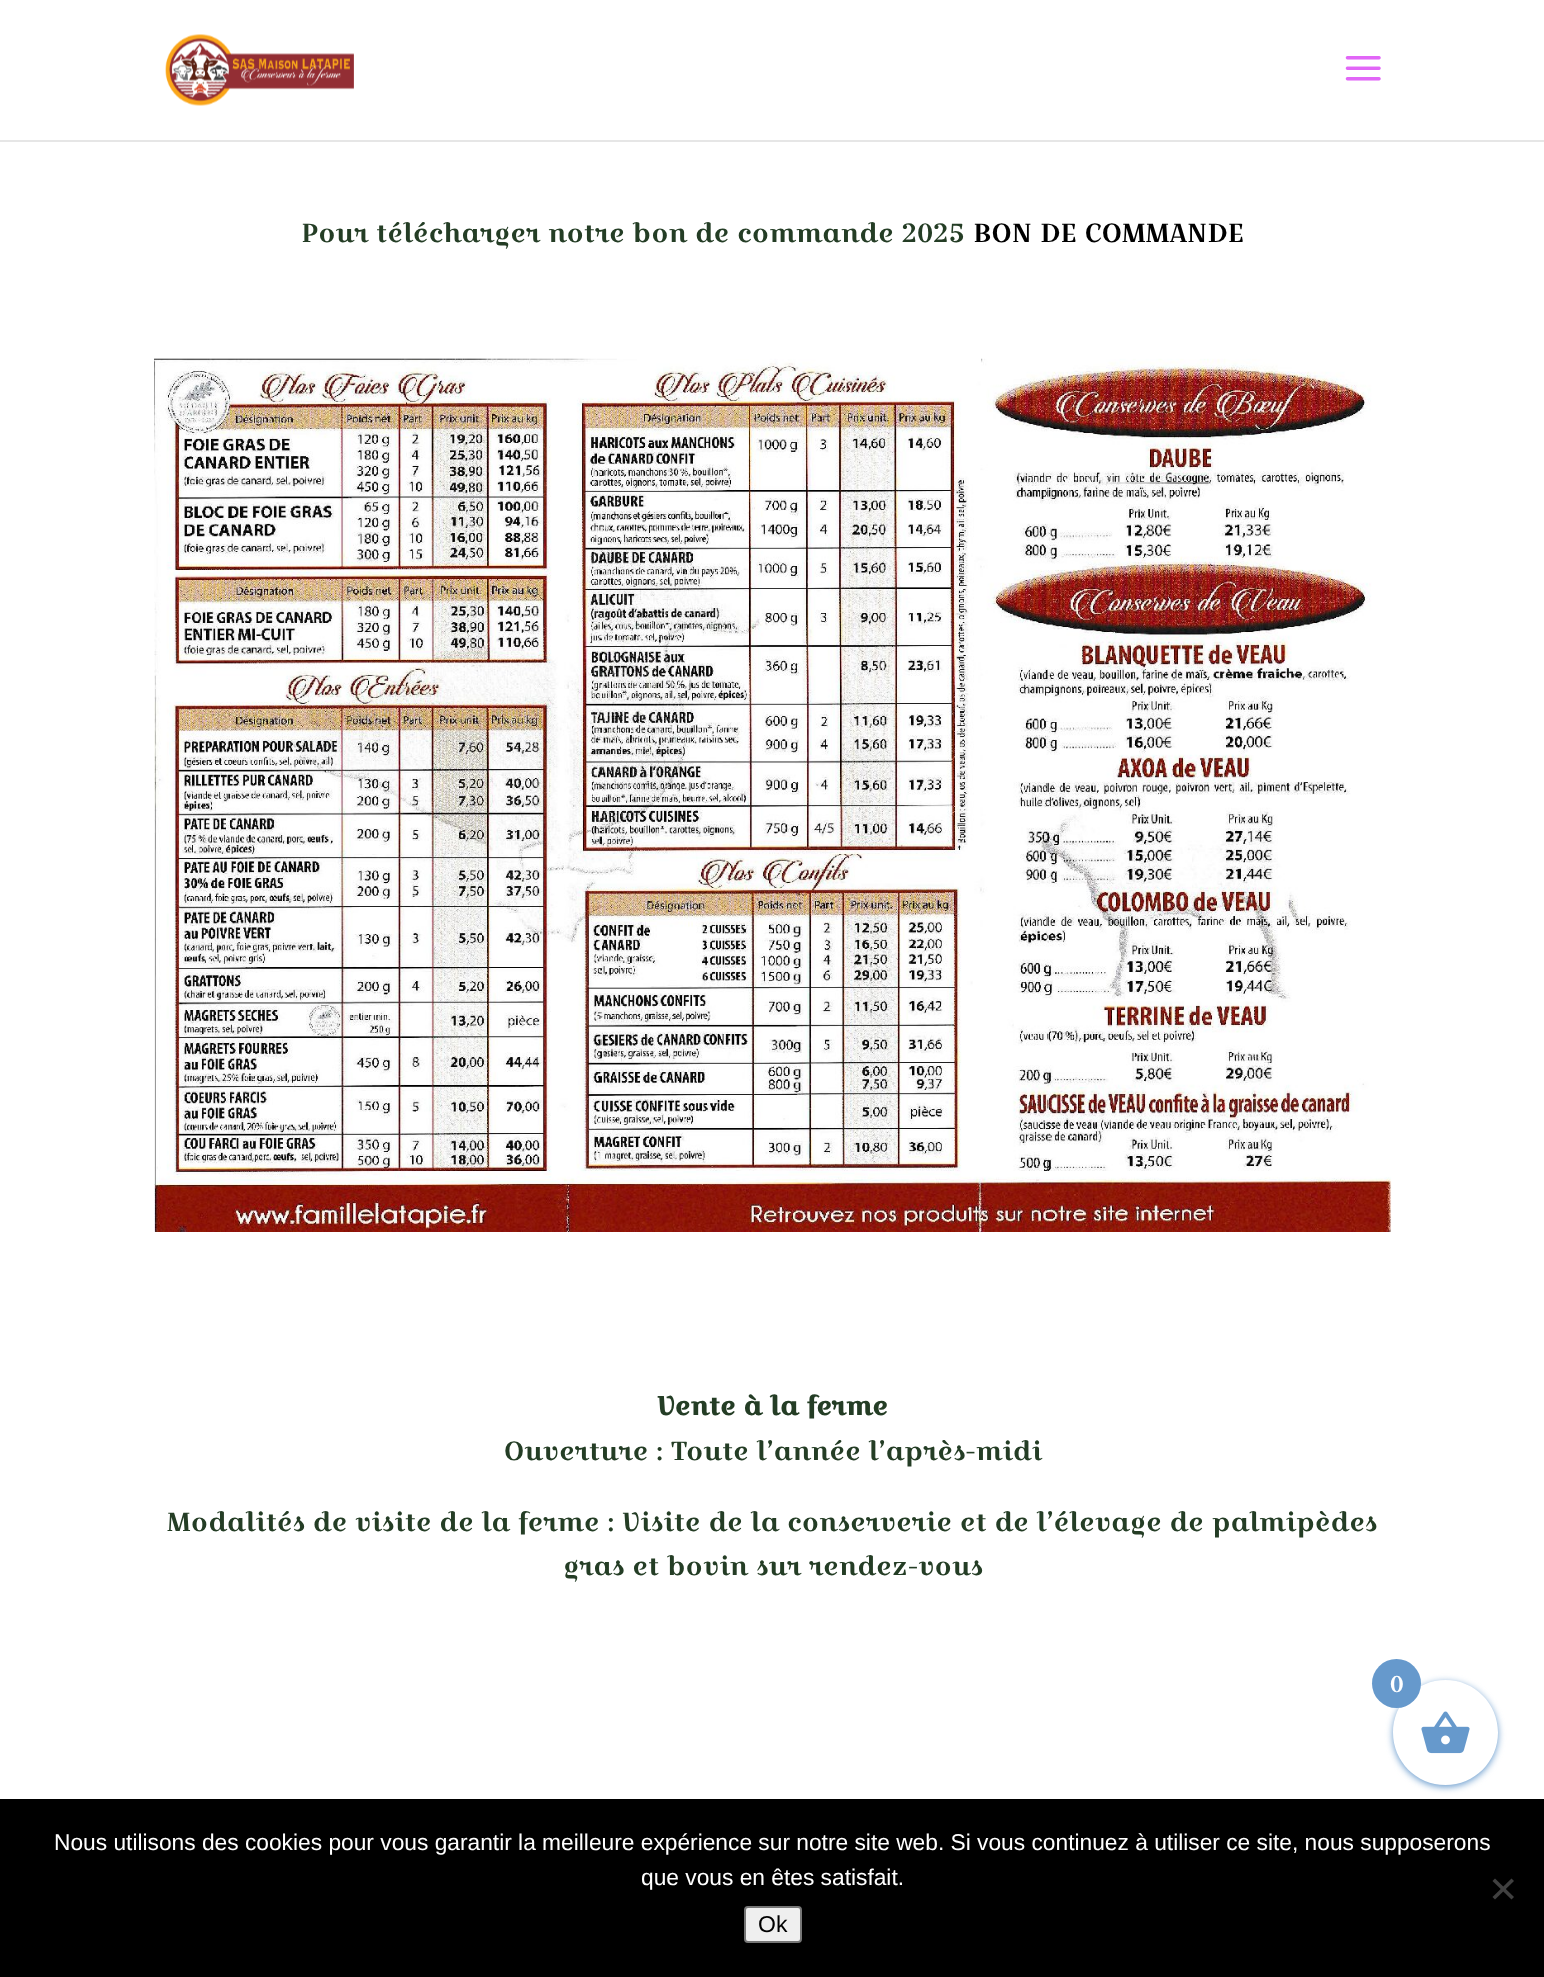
async function draw(canvas) {
  canvas.width = 1544;
  canvas.height = 1977;
  const ctx = canvas.getContext('2d');
  ctx.miterLimit = 4;
  ctx.fontKerning = 'normal';
  function label(s, x, y, font, color) {
    ctx.font = font;
    ctx.fillStyle = color;
    ctx.fillText(s, x, y);
  }
  function rect(x, y, w, h, color) {
    ctx.fillStyle = color;
    ctx.fillRect(x, y, w, h);
  }
  async function image(src, x, y, w, h) {
    const img = new Image();
    img.src = src;
    await img.decode();
    ctx.drawImage(img, x, y, w, h);
  }
  let path;

  rect(0, 0, 1544, 1977, '#fff');
  rect(0, 140, 1544, 2, '#e6e6e6');
  await image('assets/img1.png', 165, 34, 189, 72);
  await image('assets/img2.png', 1345, 56, 36, 25);
  label('Pour télécharger notre bon de commande 2025', 301, 242, '26.25px Croissant One', '#243d25');
  label('BON DE COMMANDE', 973, 242, '26.25px Croissant One', '#000');
  await image('assets/img3.png', 154, 358, 1238, 874);
  label('Vente à la ferme', 657, 1415, 'bold 26.25px Croissant One', '#243d25');
  label('Ouverture : Toute l’année l’après-midi', 504, 1460, '26.25px Croissant One', '#243d25');
  label('Modalités de visite de la ferme : Visite de la conserverie et de l’élevage de palmipèdes', 167, 1531, '26.25px Croissant One', '#243d25');
  label('gras et bovin sur rendez-vous', 563, 1575, '26.25px Croissant One', '#243d25');
  ctx.save();
  path = new Path2D('M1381 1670H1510V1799H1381ZM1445.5 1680C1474.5 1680 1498 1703.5 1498 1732.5C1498 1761.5 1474.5 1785 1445.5 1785C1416.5 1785 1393 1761.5 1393 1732.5C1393 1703.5 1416.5 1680 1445.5 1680Z');
  ctx.clip(path, 'evenodd');
  ctx.fillStyle = '#69c';
  ctx.filter = 'blur(3.5px)';
  ctx.beginPath();
  ctx.roundRect(1393, 1682, 105, 105, 52.5);
  ctx.fill();
  ctx.filter = 'none';
  ctx.restore();
  ctx.fillStyle = '#69c';
  ctx.beginPath();
  ctx.arc(1396.5, 1683.5, 24.5, 0, 2 * Math.PI);
  ctx.fill();
  label('0', 1390, 1692, '22.75px Croissant One', '#fff');
  await image('assets/img4.png', 1421, 1711, 49, 43);
  rect(0, 1799, 1544, 178, '#000');
  label('Nous utilisons des cookies pour vous garantir la meilleure expérience sur notre site web. Si vous continuez à utiliser ce site, nous supposerons', 54, 1850, '22.75px Liberation Sans', '#fff');
  label('que vous en êtes satisfait.', 641, 1885, '22.75px Liberation Sans', '#fff');
  ctx.fillStyle = '#404040';
  path = new Path2D('M1511.5 1878.5L1514 1881L1495 1899.5L1492.5 1897Z');
  ctx.fill(path);
  path = new Path2D('M1492.5 1881L1495 1878.5L1514 1897L1511.5 1899.5Z');
  ctx.fill(path);
  ctx.fillStyle = '#efefef';
  ctx.beginPath();
  ctx.roundRect(745, 1907, 56, 35, 3);
  ctx.fill();
  ctx.strokeStyle = '#767676';
  ctx.lineWidth = 2;
  ctx.stroke();
  label('Ok', 758, 1932, '23px Liberation Sans', '#000');
}

draw(document.querySelector('canvas'));
